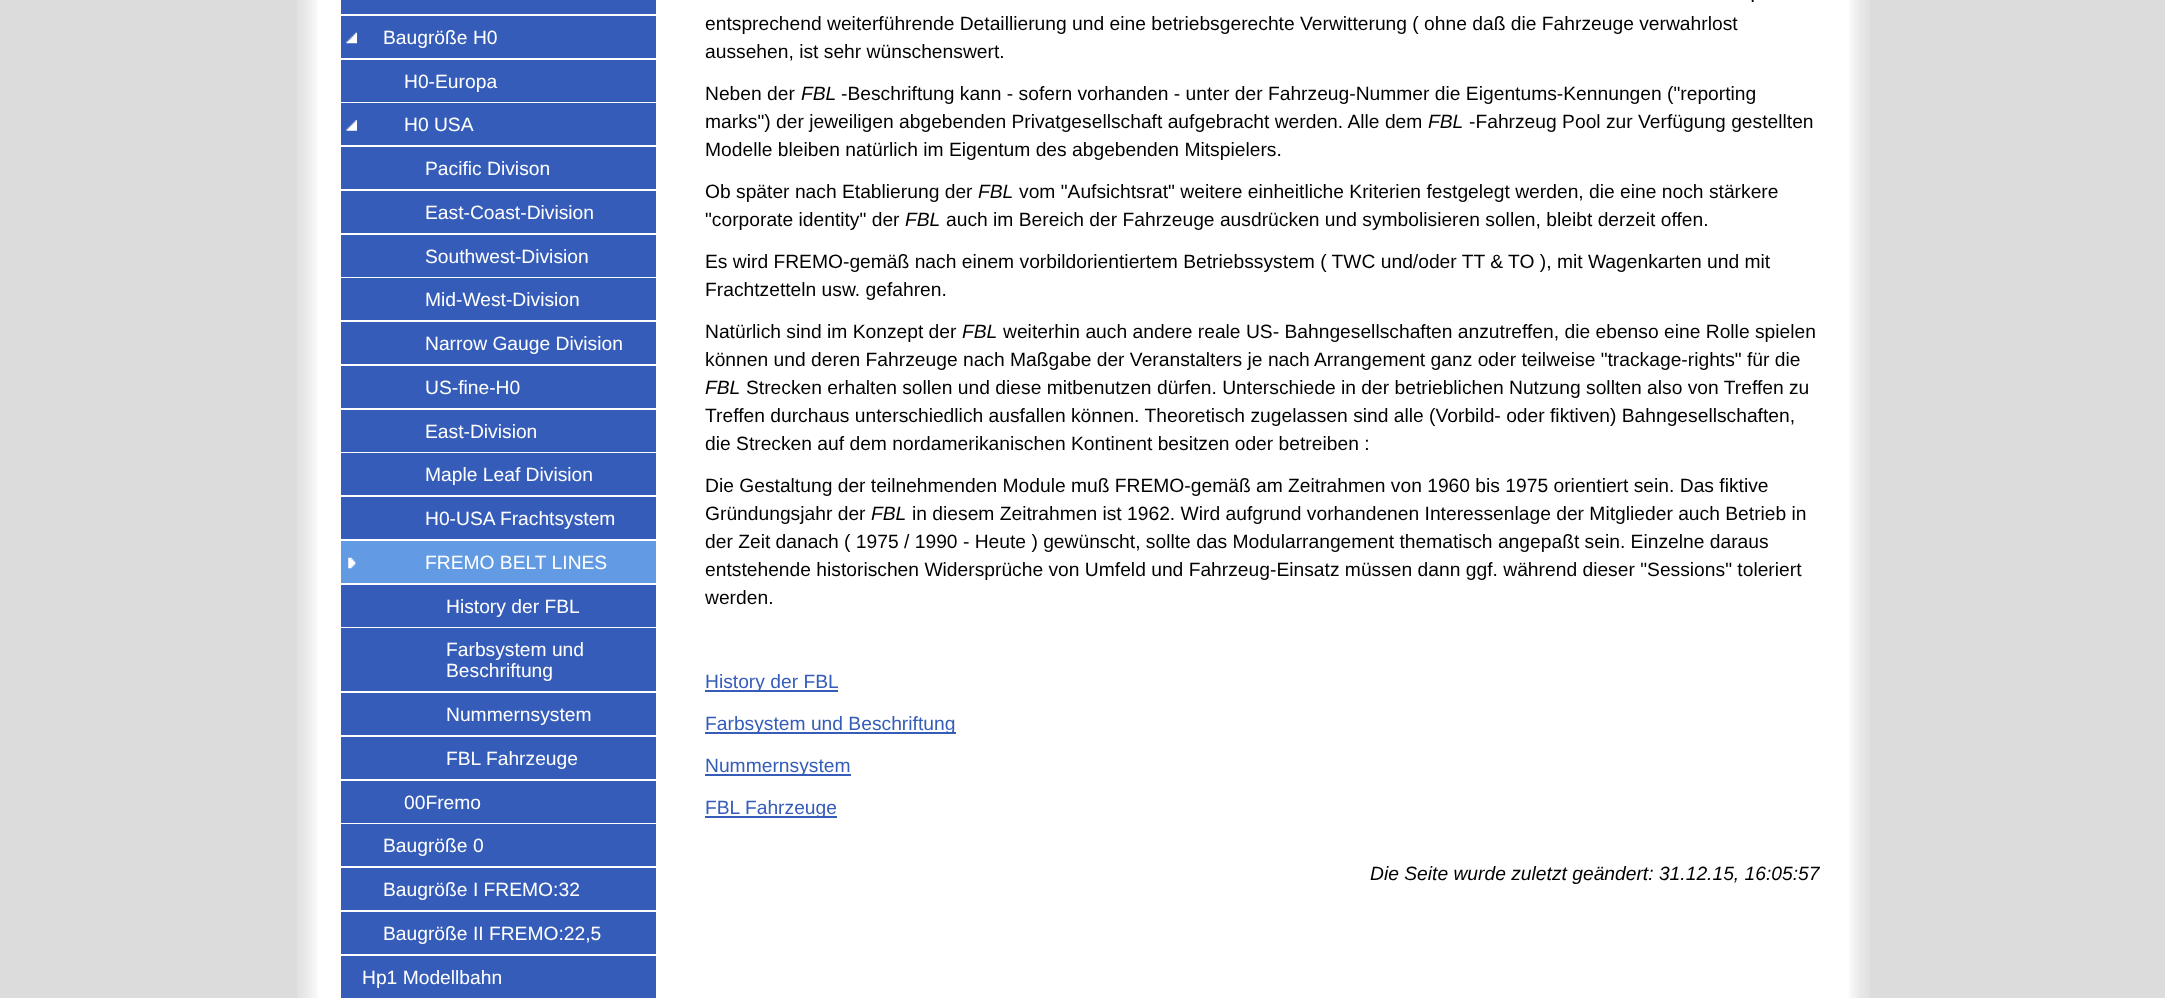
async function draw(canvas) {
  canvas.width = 2165;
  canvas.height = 998;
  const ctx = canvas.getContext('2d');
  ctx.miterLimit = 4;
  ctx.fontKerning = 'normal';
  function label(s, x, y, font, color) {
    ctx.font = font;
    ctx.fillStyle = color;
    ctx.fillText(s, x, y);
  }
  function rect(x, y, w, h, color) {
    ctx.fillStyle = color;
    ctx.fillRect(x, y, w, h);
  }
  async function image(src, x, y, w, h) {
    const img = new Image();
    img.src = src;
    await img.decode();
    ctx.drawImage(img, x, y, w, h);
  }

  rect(0, 0, 2165, 998, '#dcdcdc');
  await image('assets/img1.png', 297, 0, 1573, 998);
  rect(341, 0, 315, 14, '#355cb9');
  rect(341, 16, 315, 42, '#355cb9');
  await image('assets/img2.png', 346, 32, 11, 12);
  label('Baugröße H0', 383, 44, '19.25px Liberation Sans', '#fff');
  rect(341, 60, 315, 42, '#355cb9');
  label('H0-Europa', 404, 88, '19.25px Liberation Sans', '#fff');
  rect(341, 103, 315, 42, '#355cb9');
  await image('assets/img3.png', 346, 120, 11, 11);
  label('H0 USA', 404, 131, '19.25px Liberation Sans', '#fff');
  rect(341, 147, 315, 42, '#355cb9');
  label('Pacific Divison', 425, 175, '19.25px Liberation Sans', '#fff');
  rect(341, 191, 315, 42, '#355cb9');
  label('East-Coast-Division', 425, 219, '19.25px Liberation Sans', '#fff');
  rect(341, 235, 315, 42, '#355cb9');
  label('Southwest-Division', 425, 263, '19.25px Liberation Sans', '#fff');
  rect(341, 278, 315, 42, '#355cb9');
  label('Mid-West-Division', 425, 306, '19.25px Liberation Sans', '#fff');
  rect(341, 322, 315, 42, '#355cb9');
  label('Narrow Gauge Division', 425, 350, '19.25px Liberation Sans', '#fff');
  rect(341, 366, 315, 42, '#355cb9');
  label('US-fine-H0', 425, 394, '19.25px Liberation Sans', '#fff');
  rect(341, 410, 315, 42, '#355cb9');
  label('East-Division', 425, 438, '19.25px Liberation Sans', '#fff');
  rect(341, 453, 315, 42, '#355cb9');
  label('Maple Leaf Division', 425, 481, '19.25px Liberation Sans', '#fff');
  rect(341, 497, 315, 42, '#355cb9');
  label('H0-USA Frachtsystem', 425, 525, '19.25px Liberation Sans', '#fff');
  rect(341, 541, 315, 42, '#629ae4');
  await image('assets/img4.png', 348, 557, 8, 12);
  label('FREMO BELT LINES', 425, 569, '19.25px Liberation Sans', '#fff');
  rect(341, 585, 315, 42, '#355cb9');
  label('History der FBL', 446, 613, '19.25px Liberation Sans', '#fff');
  rect(341, 628, 315, 63, '#355cb9');
  label('Farbsystem und', 446, 656, '19.25px Liberation Sans', '#fff');
  label('Beschriftung', 446, 677, '19.25px Liberation Sans', '#fff');
  rect(341, 693, 315, 42, '#355cb9');
  label('Nummernsystem', 446, 721, '19.25px Liberation Sans', '#fff');
  rect(341, 737, 315, 42, '#355cb9');
  label('FBL Fahrzeuge', 446, 765, '19.25px Liberation Sans', '#fff');
  rect(341, 781, 315, 42, '#355cb9');
  label('00Fremo', 404, 809, '19.25px Liberation Sans', '#fff');
  rect(341, 824, 315, 42, '#355cb9');
  label('Baugröße 0', 383, 852, '19.25px Liberation Sans', '#fff');
  rect(341, 868, 315, 42, '#355cb9');
  label('Baugröße I FREMO:32', 383, 896, '19.25px Liberation Sans', '#fff');
  rect(341, 912, 315, 42, '#355cb9');
  label('Baugröße II FREMO:22,5', 383, 940, '19.25px Liberation Sans', '#fff');
  rect(341, 956, 315, 42, '#355cb9');
  label('Hp1 Modellbahn', 362, 984, '19.25px Liberation Sans', '#fff');
  label('.', 1750, 2, '19.25px Liberation Sans', '#000');
  label('entsprechend weiterführende Detaillierung und eine betriebsgerechte Verwitterung ( ohne daß die Fahrzeuge verwahrlost', 705, 30, '19.25px Liberation Sans', '#000');
  label('aussehen, ist sehr wünschenswert.', 705, 58, '19.25px Liberation Sans', '#000');
  label('Neben der', 705, 100, '19.25px Liberation Sans', '#000');
  label('FBL', 801, 100, 'italic 19.25px Liberation Sans', '#000');
  label('-Beschriftung kann - sofern vorhanden - unter der Fahrzeug-Nummer die Eigentums-Kennungen ("reporting', 841, 100, '19.25px Liberation Sans', '#000');
  label('marks") der jeweiligen abgebenden Privatgesellschaft aufgebracht werden. Alle dem', 705, 128, '19.25px Liberation Sans', '#000');
  label('FBL', 1428, 128, 'italic 19.25px Liberation Sans', '#000');
  label('-Fahrzeug Pool zur Verfügung gestellten', 1469, 128, '19.25px Liberation Sans', '#000');
  label('Modelle bleiben natürlich im Eigentum des abgebenden Mitspielers.', 705, 156, '19.25px Liberation Sans', '#000');
  label('Ob später nach Etablierung der', 705, 198, '19.25px Liberation Sans', '#000');
  label('FBL', 978, 198, 'italic 19.25px Liberation Sans', '#000');
  label('vom "Aufsichtsrat" weitere einheitliche Kriterien festgelegt werden, die eine noch stärkere', 1019, 198, '19.25px Liberation Sans', '#000');
  label('"corporate identity" der', 705, 226, '19.25px Liberation Sans', '#000');
  label('FBL', 905, 226, 'italic 19.25px Liberation Sans', '#000');
  label('auch im Bereich der Fahrzeuge ausdrücken und symbolisieren sollen, bleibt derzeit offen.', 946, 226, '19.25px Liberation Sans', '#000');
  label('Es wird FREMO-gemäß nach einem vorbildorientiertem Betriebssystem ( TWC und/oder TT & TO ), mit Wagenkarten und mit', 705, 268, '19.25px Liberation Sans', '#000');
  label('Frachtzetteln usw. gefahren.', 705, 296, '19.25px Liberation Sans', '#000');
  label('Natürlich sind im Konzept der', 705, 338, '19.25px Liberation Sans', '#000');
  label('FBL', 962, 338, 'italic 19.25px Liberation Sans', '#000');
  label('weiterhin auch andere reale US- Bahngesellschaften anzutreffen, die ebenso eine Rolle spielen', 1003, 338, '19.25px Liberation Sans', '#000');
  label('können und deren Fahrzeuge nach Maßgabe der Veranstalters je nach Arrangement ganz oder teilweise "trackage-rights" für die', 705, 366, '19.25px Liberation Sans', '#000');
  label('FBL', 705, 394, 'italic 19.25px Liberation Sans', '#000');
  label('Strecken erhalten sollen und diese mitbenutzen dürfen. Unterschiede in der betrieblichen Nutzung sollten also von Treffen zu', 746, 394, '19.25px Liberation Sans', '#000');
  label('Treffen durchaus unterschiedlich ausfallen können. Theoretisch zugelassen sind alle (Vorbild- oder fiktiven) Bahngesellschaften,', 705, 422, '19.25px Liberation Sans', '#000');
  label('die Strecken auf dem nordamerikanischen Kontinent besitzen oder betreiben :', 705, 450, '19.25px Liberation Sans', '#000');
  label('Die Gestaltung der teilnehmenden Module muß FREMO-gemäß am Zeitrahmen von 1960 bis 1975 orientiert sein. Das fiktive', 705, 492, '19.25px Liberation Sans', '#000');
  label('Gründungsjahr der', 705, 520, '19.25px Liberation Sans', '#000');
  label('FBL', 871, 520, 'italic 19.25px Liberation Sans', '#000');
  label('in diesem Zeitrahmen ist 1962. Wird aufgrund vorhandenen Interessenlage der Mitglieder auch Betrieb in', 912, 520, '19.25px Liberation Sans', '#000');
  label('der Zeit danach ( 1975 / 1990 - Heute ) gewünscht, sollte das Modularrangement thematisch angepaßt sein. Einzelne daraus', 705, 548, '19.25px Liberation Sans', '#000');
  label('entstehende historischen Widersprüche von Umfeld und Fahrzeug-Einsatz müssen dann ggf. während dieser "Sessions" toleriert', 705, 576, '19.25px Liberation Sans', '#000');
  label('werden.', 705, 604, '19.25px Liberation Sans', '#000');
  rect(705, 690, 133, 2, '#355cb9');
  label('History der FBL', 705, 688, '19.25px Liberation Sans', '#355cb9');
  rect(705, 732, 251, 2, '#355cb9');
  label('Farbsystem und Beschriftung', 705, 730, '19.25px Liberation Sans', '#355cb9');
  rect(705, 774, 146, 2, '#355cb9');
  label('Nummernsystem', 705, 772, '19.25px Liberation Sans', '#355cb9');
  rect(705, 816, 132, 2, '#355cb9');
  label('FBL Fahrzeuge', 705, 814, '19.25px Liberation Sans', '#355cb9');
  label('Die Seite wurde zuletzt geändert: 31.12.15, 16:05:57', 1370, 880, 'italic 19.25px Liberation Sans', '#000');
}

draw(document.querySelector('canvas'));
